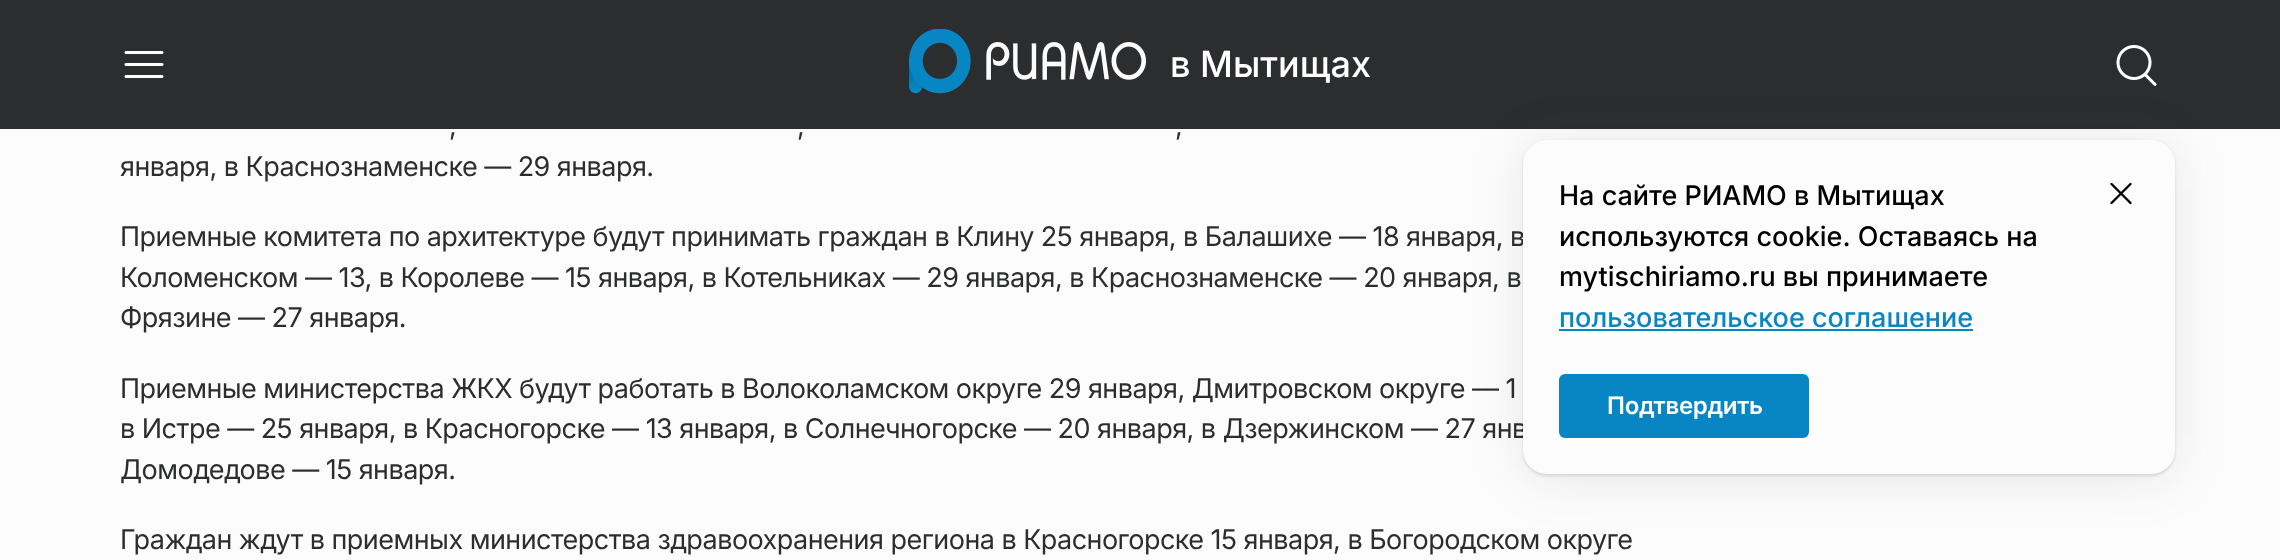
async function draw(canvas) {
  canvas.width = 2280;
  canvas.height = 560;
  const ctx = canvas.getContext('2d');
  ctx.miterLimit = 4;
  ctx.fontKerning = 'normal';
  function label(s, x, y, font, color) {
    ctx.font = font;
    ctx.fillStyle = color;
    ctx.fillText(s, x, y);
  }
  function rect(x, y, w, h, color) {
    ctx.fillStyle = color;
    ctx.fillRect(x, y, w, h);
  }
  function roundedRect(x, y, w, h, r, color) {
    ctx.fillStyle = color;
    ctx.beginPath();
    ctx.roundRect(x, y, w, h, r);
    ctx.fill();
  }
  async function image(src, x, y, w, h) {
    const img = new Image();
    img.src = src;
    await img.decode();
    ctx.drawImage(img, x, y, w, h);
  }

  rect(0, 0, 2280, 560, '#fcfcfc');
  rect(0, 0, 2280, 129, '#2c2d2e');
  await image('assets/img1.png', 124, 51, 40, 27);
  await image('assets/img2.png', 909, 29, 237, 65);
  label('в Мытищах', 1170, 77, '500 36px Inter', '#fff');
  await image('assets/img3.png', 2116, 45, 41, 41);
  ctx.letterSpacing = '-0.54px';
  label(',', 449, 135, '27px Inter', '#2c2d2e');
  label(',', 797, 135, '27px Inter', '#2c2d2e');
  label(',', 1175, 135, '27px Inter', '#2c2d2e');
  label('января, в Краснознаменске — 29 января.', 120, 176, '27px Inter', '#2c2d2e');
  label('Приемные комитета по архитектуре будут принимать граждан в Клину 25 января, в Балашихе — 18 января, в', 120, 246, '27px Inter', '#2c2d2e');
  label('Коломенском — 13, в Королеве — 15 января, в Котельниках — 29 января, в Краснознаменске — 20 января, в', 120, 287, '27px Inter', '#2c2d2e');
  label('Фрязине — 27 января.', 120, 327, '27px Inter', '#2c2d2e');
  label('Приемные министерства ЖКХ будут работать в Волоколамском округе 29 января, Дмитровском округе — 1', 120, 398, '27px Inter', '#2c2d2e');
  label('в Истре — 25 января, в Красногорске — 13 января, в Солнечногорске — 20 января, в Дзержинском — 27 янв', 120, 438, '27px Inter', '#2c2d2e');
  label('Домодедове — 15 января.', 120, 479, '27px Inter', '#2c2d2e');
  label('Граждан ждут в приемных министерства здравоохранения региона в Красногорске 15 января, в Богородском округе', 120, 549, '27px Inter', '#2c2d2e');
  ctx.fillStyle = '#2c2d2e24';
  ctx.filter = 'blur(1.5px)';
  ctx.beginPath();
  ctx.roundRect(1523, 141, 652, 335, 24);
  ctx.fill();
  ctx.filter = 'none';
  ctx.fillStyle = '#2c2d2e1a';
  ctx.filter = 'blur(25.5px)';
  ctx.beginPath();
  ctx.roundRect(1523, 144, 652, 335, 24);
  ctx.fill();
  ctx.filter = 'none';
  roundedRect(1523, 140, 652, 334, 24, '#fcfcfc');
  ctx.letterSpacing = '0px';
  label('На сайте РИАМО в Мытищах', 1559, 205, '500 27px Inter', '#000');
  label('используются cookie. Оставаясь на', 1559, 246, '500 27px Inter', '#000');
  label('mytischiriamo.ru вы принимаете', 1559, 286, '500 27px Inter', '#000');
  label('пользовательское соглашение', 1559, 327, '500 27px Inter', '#0786c3');
  rect(1559, 329, 414, 2, '#0786c3');
  await image('assets/img4.png', 2110, 182, 22, 23);
  roundedRect(1559, 374, 250, 64, 6, '#0786c3');
  ctx.letterSpacing = '-0.25px';
  label('Подтвердить', 1607, 414, '600 24px Inter', '#fff');
}

draw(document.querySelector('canvas'));
